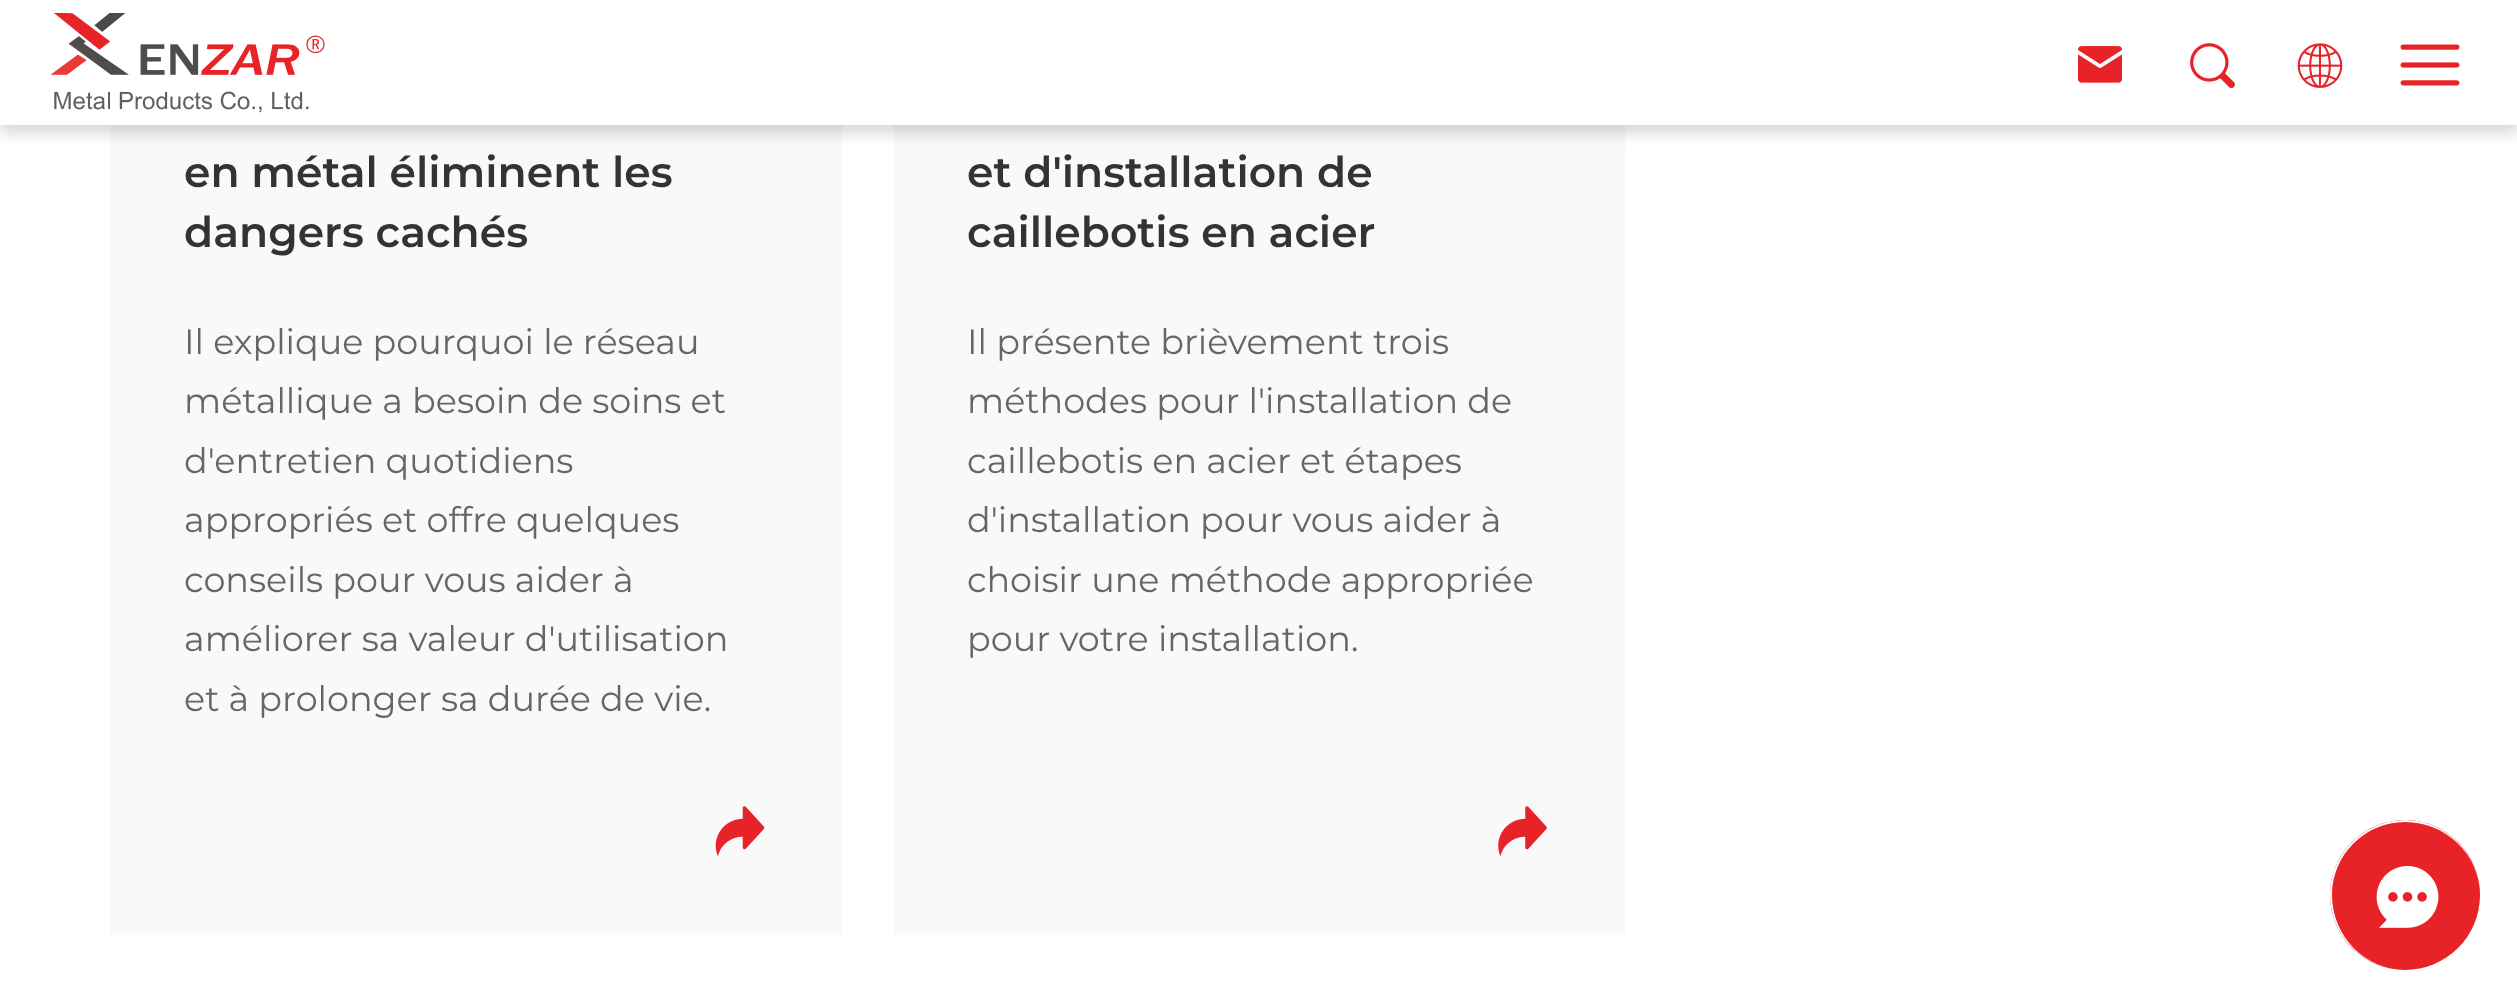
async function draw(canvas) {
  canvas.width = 2517;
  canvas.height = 1006;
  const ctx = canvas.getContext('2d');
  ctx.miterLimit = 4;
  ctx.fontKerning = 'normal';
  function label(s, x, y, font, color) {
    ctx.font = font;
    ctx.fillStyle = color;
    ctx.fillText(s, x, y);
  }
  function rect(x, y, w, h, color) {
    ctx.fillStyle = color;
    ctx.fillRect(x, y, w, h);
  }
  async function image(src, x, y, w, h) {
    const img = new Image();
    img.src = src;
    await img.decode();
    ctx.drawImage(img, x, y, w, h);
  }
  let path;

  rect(0, 0, 2517, 1006, '#fff');
  rect(110, 125, 733, 810, '#f9f9f9');
  rect(893, 125, 732, 810, '#f9f9f9');
  ctx.fillStyle = '#00000029';
  ctx.filter = 'blur(7.5px)';
  ctx.beginPath();
  ctx.rect(0, 8, 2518, 125);
  ctx.fill();
  ctx.filter = 'none';
  rect(0, 0, 2517, 125, '#fff');
  await image('assets/img1.png', 50, 13, 275, 100);
  await image('assets/img2.png', 2400, 44, 60, 42);
  await image('assets/img3.png', 2077, 46, 46, 37);
  await image('assets/img4.png', 2190, 43, 45, 45);
  await image('assets/img5.png', 2297, 43, 46, 45);
  label('en métal éliminent les', 184, 187, '600 42.5px Montserrat', '#333');
  label('dangers cachés', 184, 247, '600 42.5px Montserrat', '#333');
  label('Il explique pourquoi le réseau', 184, 354, '35px Montserrat', '#666');
  label('métallique a besoin de soins et', 184, 413, '35px Montserrat', '#666');
  label('d\'entretien quotidiens', 184, 473, '35px Montserrat', '#666');
  label('appropriés et offre quelques', 184, 532, '35px Montserrat', '#666');
  label('conseils pour vous aider à', 184, 592, '35px Montserrat', '#666');
  label('améliorer sa valeur d\'utilisation', 184, 651, '35px Montserrat', '#666');
  label('et à prolonger sa durée de vie.', 184, 711, '35px Montserrat', '#666');
  await image('assets/img6.png', 715, 806, 50, 51);
  label('et d\'installation de', 967, 187, '600 42.5px Montserrat', '#333');
  label('caillebotis en acier', 967, 247, '600 42.5px Montserrat', '#333');
  label('Il présente brièvement trois', 967, 354, '35px Montserrat', '#666');
  label('méthodes pour l\'installation de', 967, 413, '35px Montserrat', '#666');
  label('caillebotis en acier et étapes', 967, 473, '35px Montserrat', '#666');
  label('d\'installation pour vous aider à', 967, 532, '35px Montserrat', '#666');
  label('choisir une méthode appropriée', 967, 592, '35px Montserrat', '#666');
  label('pour votre installation.', 967, 651, '35px Montserrat', '#666');
  await image('assets/img7.png', 1498, 806, 49, 51);
  ctx.fillStyle = '#e72328';
  ctx.beginPath();
  ctx.arc(2405, 895, 75, 0, 2 * Math.PI);
  ctx.fill();
  ctx.fillStyle = '#fff';
  path = new Path2D('M2405 820C2446 820 2480 854 2480 895C2480 936 2446 970 2405 970C2364 970 2330 936 2330 895C2330 854 2364 820 2405 820ZM2405 822C2446 822 2480 855 2480 895C2480 936 2446 970 2405 970C2365 970 2332 936 2332 895C2332 855 2365 822 2405 822Z');
  ctx.fill(path, 'evenodd');
  await image('assets/img8.png', 2376, 865, 63, 63);
}

draw(document.querySelector('canvas'));
